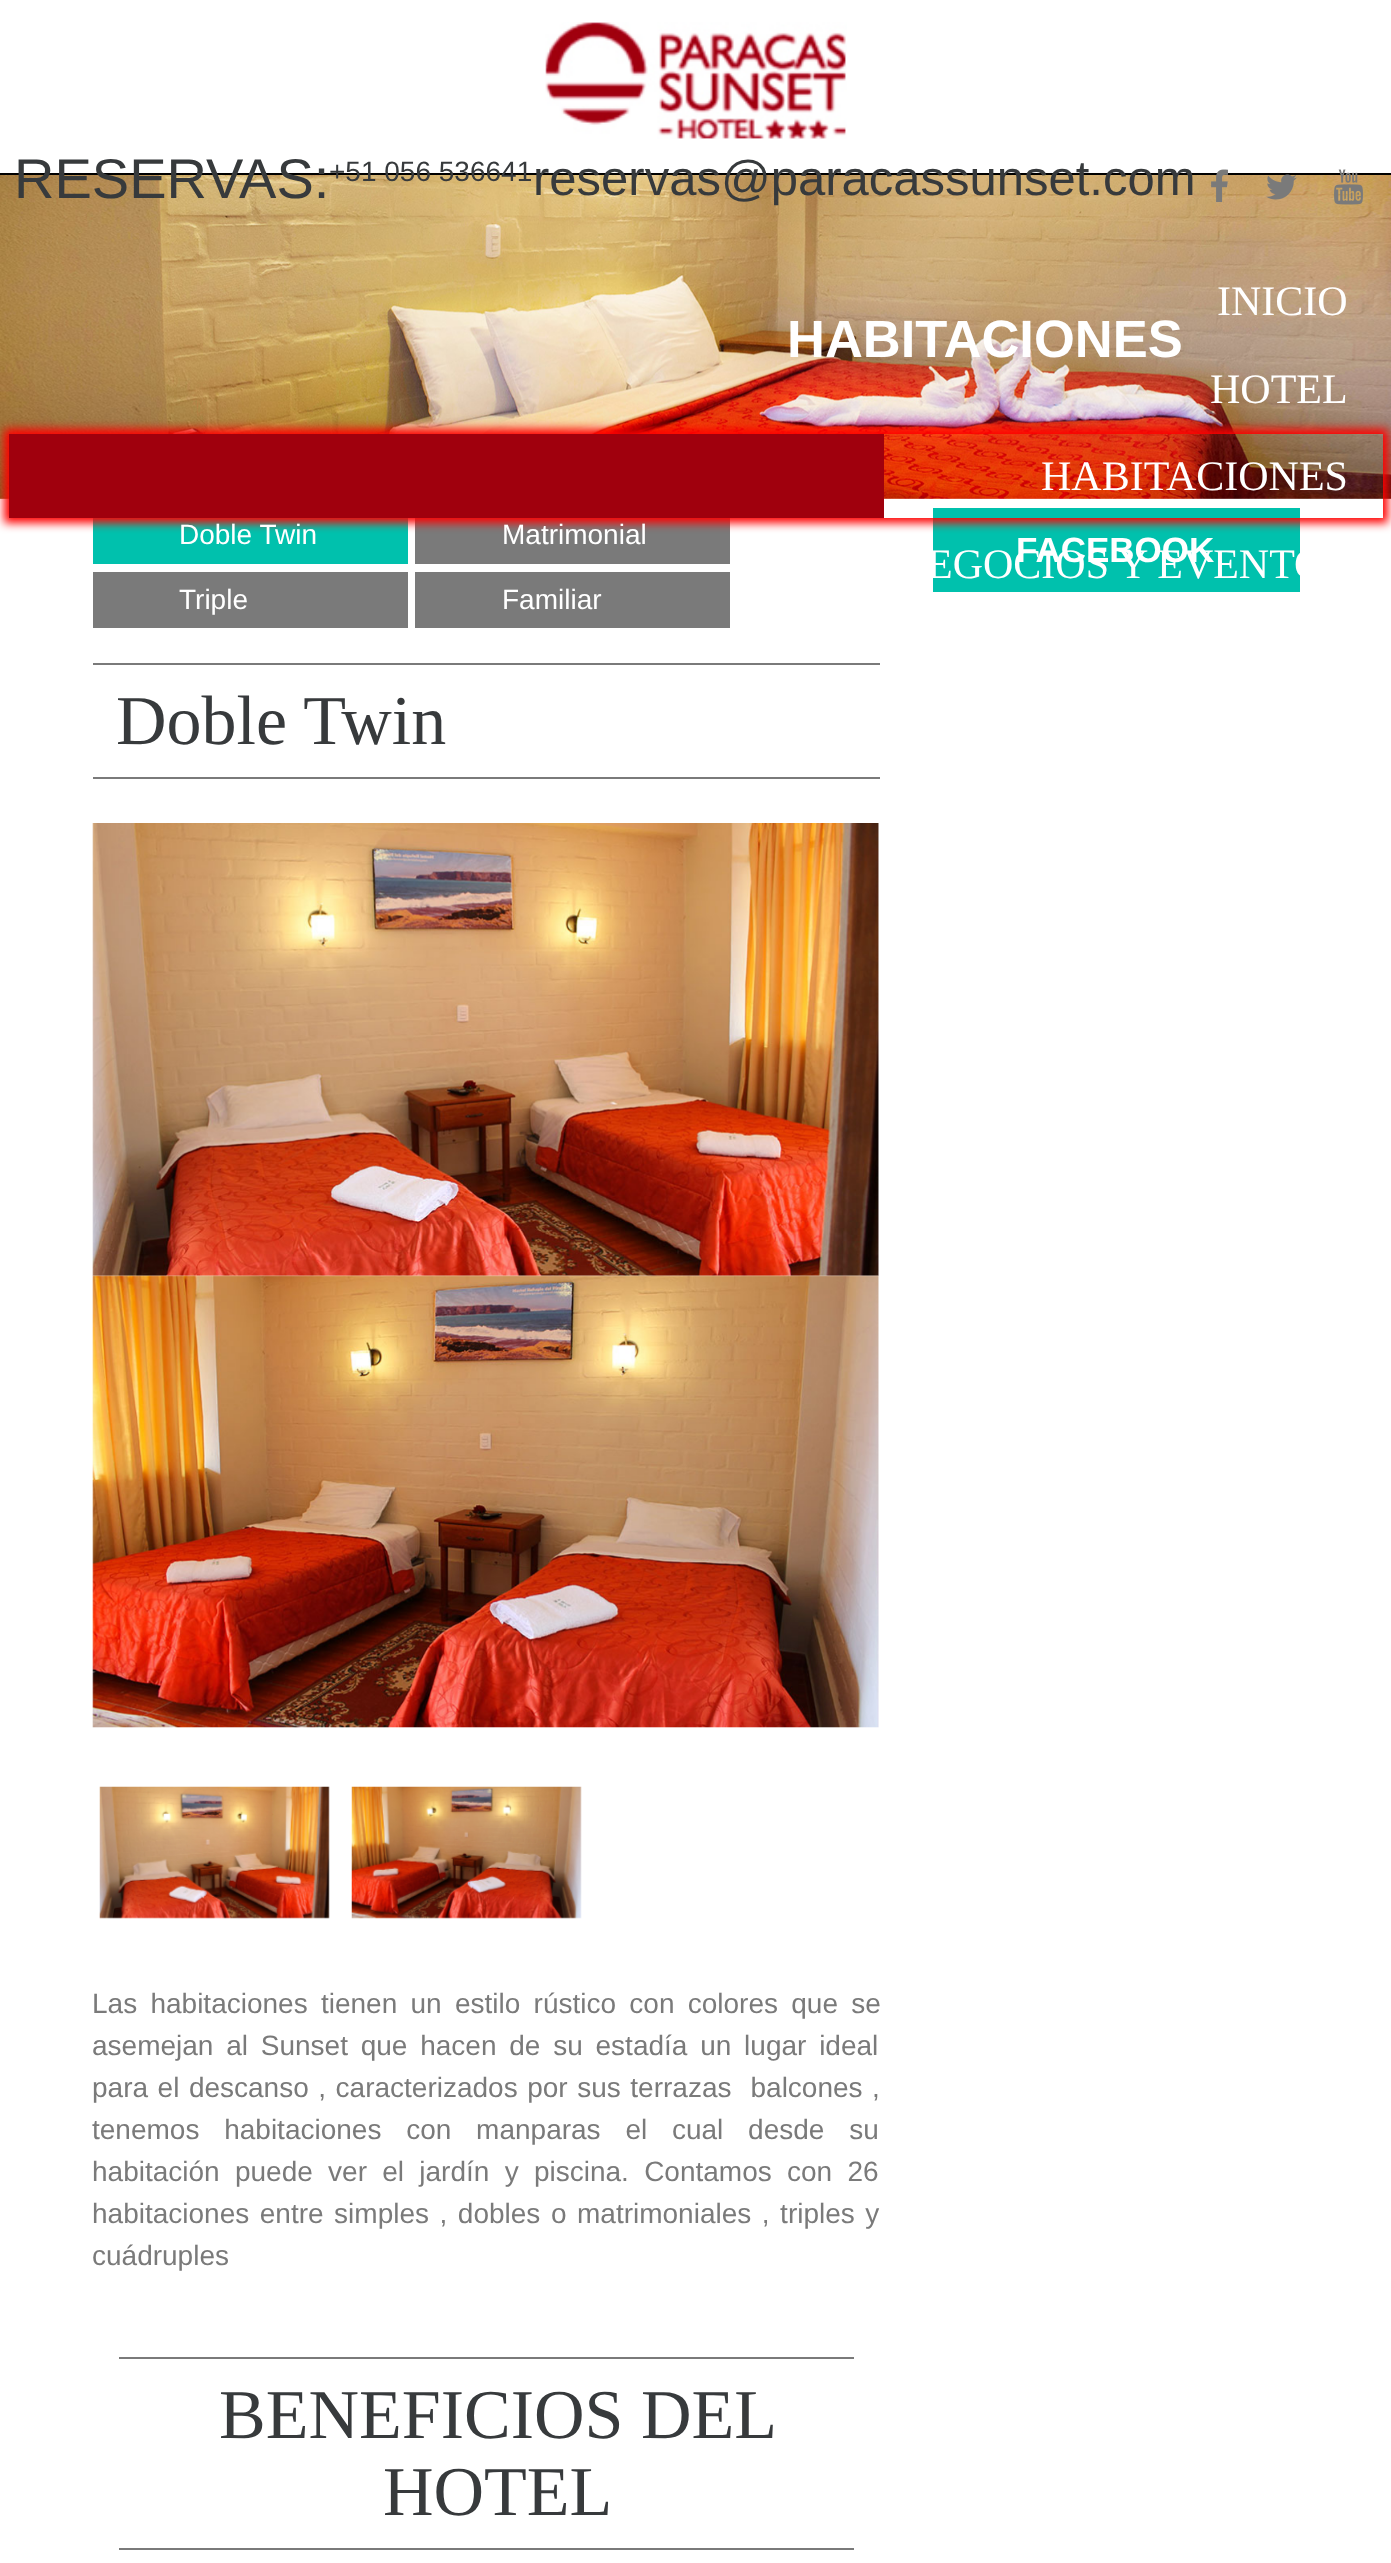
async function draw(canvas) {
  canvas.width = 1391;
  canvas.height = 2563;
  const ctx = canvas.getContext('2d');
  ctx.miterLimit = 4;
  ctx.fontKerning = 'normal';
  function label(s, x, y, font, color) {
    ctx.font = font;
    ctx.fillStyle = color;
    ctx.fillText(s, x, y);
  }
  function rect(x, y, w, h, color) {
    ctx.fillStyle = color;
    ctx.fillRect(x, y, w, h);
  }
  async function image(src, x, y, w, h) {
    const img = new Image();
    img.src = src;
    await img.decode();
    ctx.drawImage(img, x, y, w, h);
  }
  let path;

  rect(0, 0, 1391, 2563, '#fff');
  rect(0, 173, 1391, 2, '#000');
  await image('assets/img1.png', 545, 22, 302, 117);
  await image('assets/img5.png', 0, 175, 1391, 324);
  label('RESERVAS:', 14, 198, '56px Liberation Sans', '#373a3c');
  label('+51 056 536641', 329, 181, '28px Liberation Sans', '#373a3c');
  label('reservas@paracassunset.com', 533, 195, '49px Liberation Sans', '#373a3c');
  await image('assets/img2.png', 1211, 169, 17, 33);
  await image('assets/img3.png', 1266, 174, 31, 26);
  await image('assets/img4.png', 1334, 169, 29, 36);
  label('INICIO', 1217, 315, '42px Liberation Serif', '#fff');
  label('HOTEL', 1210, 403, '42px Liberation Serif', '#fff');
  rect(93, 518, 315, 46, '#00c1ad');
  rect(415, 518, 315, 46, '#7a7a7a');
  rect(933, 508, 367, 84, '#00c1ad');
  ctx.save();
  path = new Path2D('M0 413H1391V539H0ZM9 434H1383V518H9Z');
  ctx.clip(path, 'evenodd');
  ctx.fillStyle = '#f00';
  ctx.filter = 'blur(5px)';
  ctx.beginPath();
  ctx.rect(4, 429, 1384, 94);
  ctx.fill();
  ctx.filter = 'none';
  ctx.restore();
  rect(9, 434, 875, 84, '#a0000d');
  label('HABITACIONES', 1041, 490, '42px Liberation Serif', '#fff');
  label('FACEBOOK', 1016, 562, 'bold 35px Liberation Sans', '#fff');
  label('EGOCIOS Y EVENTO', 927, 578, '42px Liberation Serif', '#fff');
  label('HABITACIONES', 787, 357, 'bold 52.5px Liberation Sans', '#fff');
  label('Doble Twin', 179, 544, '28px Liberation Sans', '#fff');
  label('Matrimonial', 502, 544, '28px Liberation Sans', '#fff');
  rect(93, 572, 315, 56, '#7a7a7a');
  label('Triple', 179, 609, '28px Liberation Sans', '#fff');
  rect(415, 572, 315, 56, '#7a7a7a');
  label('Familiar', 502, 609, '28px Liberation Sans', '#fff');
  rect(93, 663, 787, 2, '#7a7a7a');
  rect(93, 777, 787, 2, '#7a7a7a');
  label('Doble Twin', 116, 744, '70px Liberation Serif', '#373a3c');
  await image('assets/img6.png', 92, 823, 787, 453);
  await image('assets/img7.png', 92, 1275, 787, 453);
  await image('assets/img8.png', 99, 1786, 231, 133);
  await image('assets/img9.png', 351, 1786, 231, 133);
  ctx.wordSpacing = '5.5px';
  label('Las habitaciones tienen un estilo rústico con colores que se', 92, 2013, '28px Liberation Sans', '#7a7a7a');
  ctx.wordSpacing = '5px';
  label('asemejan al Sunset que hacen de su estadía un lugar ideal', 92, 2055, '28px Liberation Sans', '#7a7a7a');
  ctx.wordSpacing = '1.75px';
  label('para el descanso , caracterizados por sus terrazas  balcones ,', 92, 2097, '28px Liberation Sans', '#7a7a7a');
  ctx.wordSpacing = '17px';
  label('tenemos habitaciones con manparas el cual desde su', 92, 2139, '28px Liberation Sans', '#7a7a7a');
  ctx.wordSpacing = '7.5px';
  label('habitación puede ver el jardín y piscina. Contamos con 26', 92, 2181, '28px Liberation Sans', '#7a7a7a');
  ctx.wordSpacing = '2.75px';
  label('habitaciones entre simples , dobles o matrimoniales , triples y', 92, 2223, '28px Liberation Sans', '#7a7a7a');
  ctx.wordSpacing = '0px';
  label('cuádruples', 92, 2265, '28px Liberation Sans', '#7a7a7a');
  rect(119, 2357, 735, 2, '#7a7a7a');
  rect(119, 2548, 735, 2, '#7a7a7a');
  label('BENEFICIOS DEL', 219, 2438, '70px Liberation Serif', '#373a3c');
  label('HOTEL', 383, 2515, '70px Liberation Serif', '#373a3c');
}

draw(document.querySelector('canvas'));
